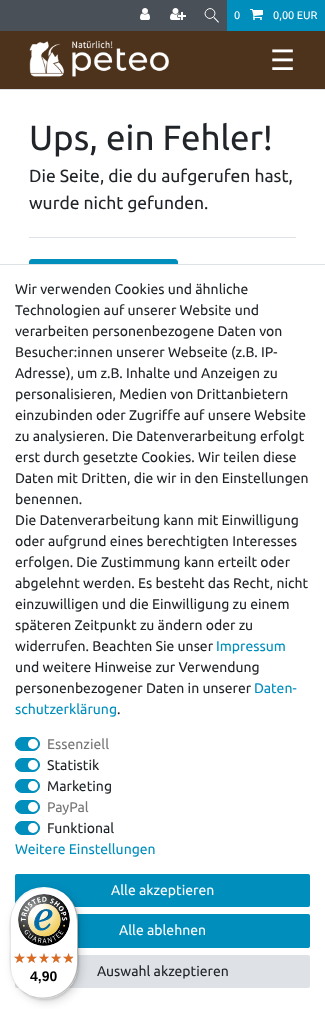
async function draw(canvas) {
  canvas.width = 325;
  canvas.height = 1009;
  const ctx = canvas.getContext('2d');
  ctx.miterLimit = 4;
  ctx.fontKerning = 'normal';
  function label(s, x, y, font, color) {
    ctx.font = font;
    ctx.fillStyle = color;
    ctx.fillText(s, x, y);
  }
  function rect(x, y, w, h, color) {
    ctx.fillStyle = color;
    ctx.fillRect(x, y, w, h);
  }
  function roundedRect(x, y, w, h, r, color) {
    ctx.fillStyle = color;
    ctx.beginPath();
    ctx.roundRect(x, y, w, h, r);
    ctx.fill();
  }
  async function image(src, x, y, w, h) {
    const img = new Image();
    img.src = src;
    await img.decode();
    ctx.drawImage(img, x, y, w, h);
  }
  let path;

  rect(0, 0, 325, 1009, '#fff');
  rect(0, 0, 227, 31, '#495057');
  await image('assets/img1.png', 140, 8, 10, 12);
  await image('assets/img2.png', 170, 8, 16, 12);
  ctx.fillStyle = '#fff';
  path = new Path2D('M218 22.5C217 21 208 12.5 208 12L209 11.5L219 22C219 22.5 218.5 22.5 218 22.5Z');
  ctx.fill(path);
  ctx.fillStyle = '#495057';
  path = new Path2D('M206 17.5C201 12.5 209 4.5 214 9.5C219 14.5 211.5 22.5 206 17.5Z');
  ctx.fill(path);
  path = new Path2D('M206.5 17C202 12.5 209 5.5 213.5 10C218 14.5 211 21.5 206.5 17Z');
  ctx.strokeStyle = '#fff';
  ctx.stroke(path);
  rect(227, 0, 98, 31, '#008ebd');
  label('0', 234, 19, '11px Ubuntu', '#fff');
  await image('assets/img3.png', 250, 9, 13, 11);
  label('0,00 EUR', 273, 19, '11px Ubuntu', '#fff');
  rect(0, 31, 325, 58, '#4e331c');
  rect(0, 89, 325, 1, '#dee2e6');
  await image('assets/img4.png', 29, 40, 140, 37);
  label('☰', 270, 70, '28px DejaVu Sans', '#fff');
  label('Ups, ein Fehler!', 29, 150, '35px Ubuntu', '#212529');
  label('Die Seite, die du aufgerufen hast,', 29, 182, '17.5px Ubuntu', '#212529');
  label('wurde nicht gefunden.', 29, 209, '17.5px Ubuntu', '#212529');
  rect(29, 237, 267, 1, '#dee2e6');
  ctx.fillStyle = '#008ebd';
  ctx.beginPath();
  ctx.roundRect(29.5, 259.5, 148, 45, 2.5);
  ctx.fill();
  ctx.strokeStyle = '#008ebd';
  ctx.stroke();
  rect(29, 265, 149, 40, '#fff');
  rect(0, 264, 325, 1, '#dee2e6');
  label('Wir verwenden Cookies und ähnliche', 15, 294, '14px Ubuntu', '#212529');
  label('Technologien auf unserer Website und', 15, 315, '14px Ubuntu', '#212529');
  label('verarbeiten personenbezogene Daten von', 15, 336, '14px Ubuntu', '#212529');
  label('Besucher:innen unserer Webseite (z.B. IP-', 15, 357, '14px Ubuntu', '#212529');
  label('Adresse), um z.B. Inhalte und Anzeigen zu', 15, 378, '14px Ubuntu', '#212529');
  label('personalisieren, Medien von Drittanbietern', 15, 399, '14px Ubuntu', '#212529');
  label('einzubinden oder Zugriffe auf unsere Website', 15, 420, '14px Ubuntu', '#212529');
  label('zu analysieren. Die Datenverarbeitung erfolgt', 15, 441, '14px Ubuntu', '#212529');
  label('erst durch gesetzte Cookies. Wir teilen diese', 15, 462, '14px Ubuntu', '#212529');
  label('Daten mit Dritten, die wir in den Einstellungen', 15, 483, '14px Ubuntu', '#212529');
  label('benennen.', 15, 504, '14px Ubuntu', '#212529');
  label('Die Datenverarbeitung kann mit Einwilligung', 15, 525, '14px Ubuntu', '#212529');
  label('oder aufgrund eines berechtigten Interesses', 15, 546, '14px Ubuntu', '#212529');
  label('erfolgen. Die Zustimmung kann erteilt oder', 15, 567, '14px Ubuntu', '#212529');
  label('abgelehnt werden. Es besteht das Recht, nicht', 15, 588, '14px Ubuntu', '#212529');
  label('einzuwilligen und die Einwilligung zu einem', 15, 609, '14px Ubuntu', '#212529');
  label('späteren Zeitpunkt zu ändern oder zu', 15, 630, '14px Ubuntu', '#212529');
  label('widerrufen. Beachten Sie unser', 15, 651, '14px Ubuntu', '#212529');
  label('Impressum', 216, 651, '14px Ubuntu', '#008ebd');
  label('und weitere Hinweise zur Verwendung', 15, 672, '14px Ubuntu', '#212529');
  label('personenbezogener Daten in unserer', 15, 693, '14px Ubuntu', '#212529');
  label('Daten-', 254, 693, '14px Ubuntu', '#008ebd');
  label('schutzerklärung', 15, 714, '14px Ubuntu', '#008ebd');
  label('.', 117, 714, '14px Ubuntu', '#212529');
  ctx.fillStyle = '#008ebd';
  ctx.beginPath();
  ctx.roundRect(15.5, 737.5, 24, 13, 6.5);
  ctx.fill();
  ctx.stroke();
  label('Essenziell', 47, 749, '14px Ubuntu', '#767676');
  ctx.fillStyle = '#fff';
  ctx.beginPath();
  ctx.arc(33, 744, 5, 0, 2 * Math.PI);
  ctx.fill();
  ctx.fillStyle = '#008ebd';
  ctx.beginPath();
  ctx.roundRect(15.5, 758.5, 24, 13, 6.5);
  ctx.fill();
  ctx.stroke();
  label('Statistik', 47, 770, '14px Ubuntu', '#212529');
  ctx.fillStyle = '#fff';
  ctx.beginPath();
  ctx.arc(33, 765, 5, 0, 2 * Math.PI);
  ctx.fill();
  ctx.fillStyle = '#008ebd';
  ctx.beginPath();
  ctx.roundRect(15.5, 779.5, 24, 13, 6.5);
  ctx.fill();
  ctx.stroke();
  label('Marketing', 47, 791, '14px Ubuntu', '#212529');
  ctx.fillStyle = '#fff';
  ctx.beginPath();
  ctx.arc(33, 786, 5, 0, 2 * Math.PI);
  ctx.fill();
  ctx.fillStyle = '#008ebd';
  ctx.beginPath();
  ctx.roundRect(15.5, 800.5, 24, 13, 6.5);
  ctx.fill();
  ctx.stroke();
  label('PayPal', 47, 812, '14px Ubuntu', '#767676');
  ctx.fillStyle = '#fff';
  ctx.beginPath();
  ctx.arc(33, 807, 5, 0, 2 * Math.PI);
  ctx.fill();
  ctx.fillStyle = '#008ebd';
  ctx.beginPath();
  ctx.roundRect(15.5, 821.5, 24, 13, 6.5);
  ctx.fill();
  ctx.stroke();
  label('Funktional', 47, 833, '14px Ubuntu', '#212529');
  ctx.fillStyle = '#fff';
  ctx.beginPath();
  ctx.arc(33, 828, 5, 0, 2 * Math.PI);
  ctx.fill();
  label('Weitere Einstellungen', 15, 854, '14px Ubuntu', '#008ebd');
  ctx.beginPath();
  ctx.roundRect(15.5, 874.5, 294, 32, 1);
  ctx.fill();
  ctx.stroke();
  label('Alle akzeptieren', 111, 895, '14px Ubuntu', '#fff');
  ctx.fillStyle = '#008ebd';
  ctx.beginPath();
  ctx.roundRect(15.5, 914.5, 294, 33, 1);
  ctx.fill();
  ctx.stroke();
  label('Alle ablehnen', 119, 935, '14px Ubuntu', '#fff');
  ctx.fillStyle = '#dee2e6';
  ctx.beginPath();
  ctx.roundRect(15.5, 955.5, 294, 32, 1);
  ctx.fill();
  ctx.strokeStyle = '#dee2e6';
  ctx.stroke();
  label('Auswahl akzeptieren', 97, 976, '14px Ubuntu', '#212529');
  ctx.fillStyle = '#00000026';
  ctx.filter = 'blur(4px)';
  ctx.beginPath();
  ctx.roundRect(13, 890, 68, 112, 34);
  ctx.fill();
  ctx.filter = 'none';
  ctx.filter = 'blur(1px)';
  ctx.beginPath();
  ctx.roundRect(11, 888, 68, 112, 34);
  ctx.fill();
  ctx.filter = 'none';
  roundedRect(10, 887, 68, 112, 34, '#fff');
  ctx.fillStyle = '#0000001a';
  path = new Path2D('M45 888C53 888 61 891 67 896C50 881 22 887 13 908C8 918 10 932 10 943C10 958 7 975 19 988C14 982 11 974 11 966V922C11 903 26 888 45 888Z');
  ctx.fill(path);
  ctx.fillStyle = '#00000033';
  path = new Path2D('M21 990C38 1005 66 999 75 978C80 968 78 954 78 943C78 928 81 911 69 898C79 911 77 927 77 942C77 953 79 967 74 977C66 998 38 1004 21 990Z');
  ctx.fill(path);
  ctx.fillStyle = '#32323233';
  path = new Path2D('M17 986C24 994 33 999 44 999C63 999 78 984 78 965V921C78 910 73 901 65 894C72 901 77 910 77 920V964C77 983 62 998 43 998C33 998 24 993 17 986Z');
  ctx.fill(path);
  ctx.fillStyle = '#ffffff4d';
  path = new Path2D('M10 964C10 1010 78 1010 78 964C78 983 62 998 44 998C25 998 10 983 10 964Z');
  ctx.fill(path);
  await image('assets/img5.png', 18, 894, 52, 52);
  await image('assets/img6.png', 14, 953, 11, 10);
  await image('assets/img7.png', 27, 953, 10, 10);
  await image('assets/img8.png', 39, 953, 10, 10);
  await image('assets/img9.png', 51, 953, 11, 10);
  await image('assets/img9.png', 63, 953, 11, 10);
  await image('assets/img10.png', 14, 953, 11, 10);
  await image('assets/img11.png', 26, 953, 11, 10);
  await image('assets/img12.png', 39, 953, 10, 10);
  await image('assets/img13.png', 51, 953, 10, 10);
  await image('assets/img14.png', 63, 953, 10, 10);
  label('4,90', 30, 981, 'bold 14px Liberation Sans', '#000');
}

draw(document.querySelector('canvas'));
